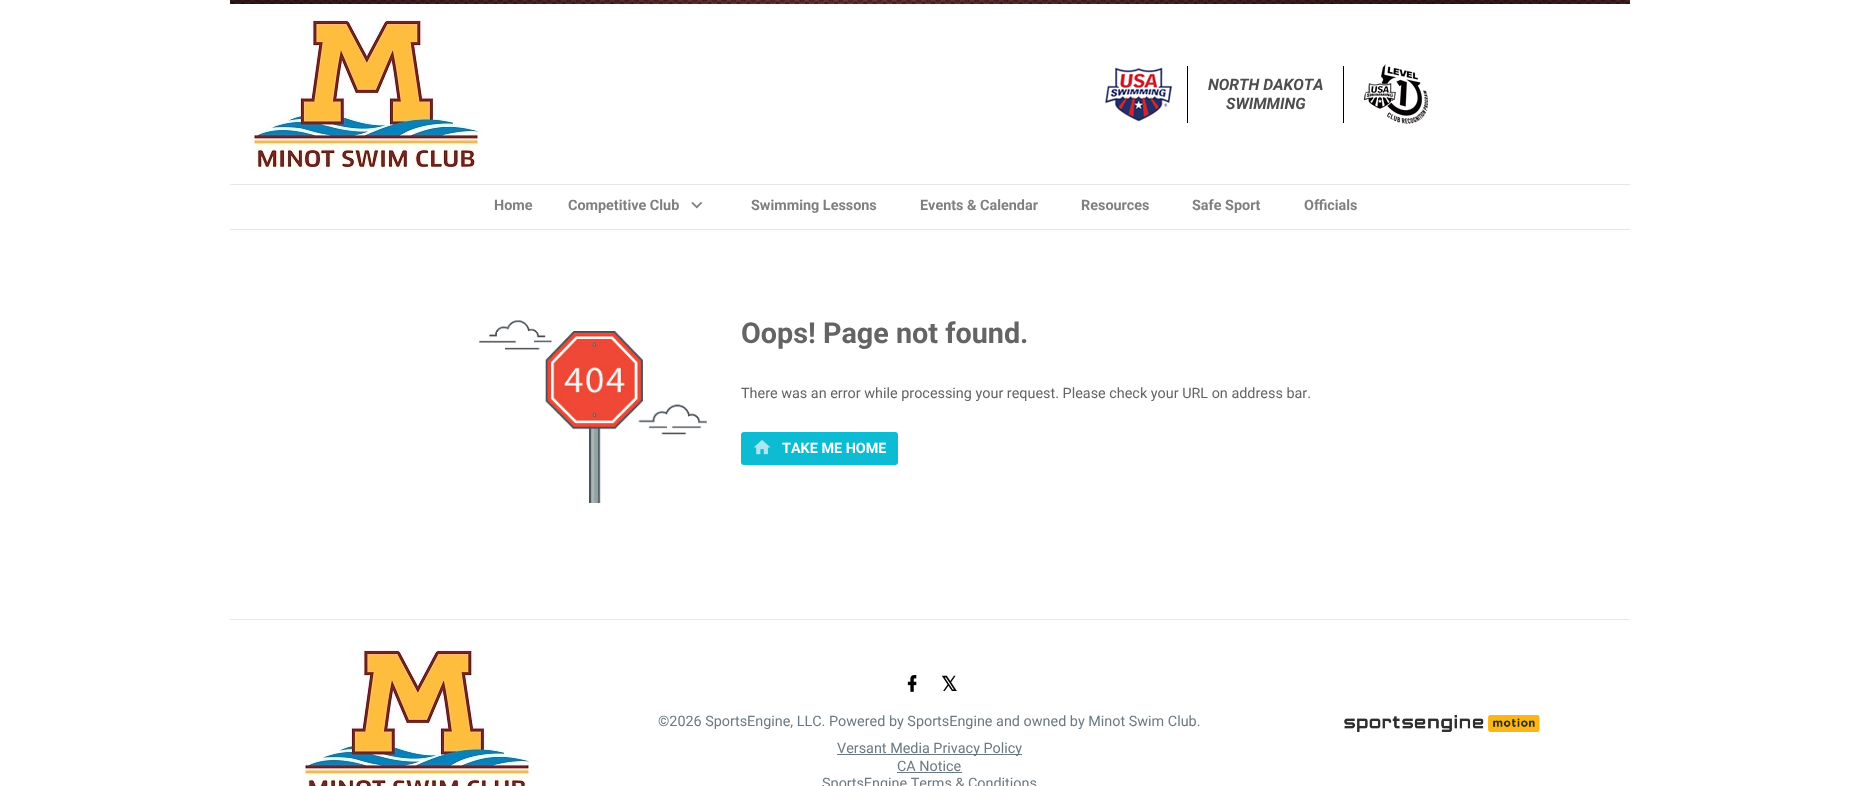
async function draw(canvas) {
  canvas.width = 1859;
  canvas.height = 786;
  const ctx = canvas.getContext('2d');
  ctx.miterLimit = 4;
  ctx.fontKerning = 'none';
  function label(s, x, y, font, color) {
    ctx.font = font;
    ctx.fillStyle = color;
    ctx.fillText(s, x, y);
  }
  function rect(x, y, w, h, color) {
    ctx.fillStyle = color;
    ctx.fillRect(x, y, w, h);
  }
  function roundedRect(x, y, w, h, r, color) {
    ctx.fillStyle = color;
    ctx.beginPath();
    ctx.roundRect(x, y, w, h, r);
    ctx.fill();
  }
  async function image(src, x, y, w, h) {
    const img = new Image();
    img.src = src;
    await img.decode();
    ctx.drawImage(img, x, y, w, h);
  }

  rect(0, 0, 1859, 786, '#fff');
  await image('assets/img1.png', 230, 0, 1400, 4);
  await image('assets/img2.png', 251, 19, 230, 151);
  await image('assets/img3.png', 1105, 67, 68, 55);
  rect(1187, 66, 1, 57, '#000');
  label('NORTH DAKOTA', 1208, 90, 'italic bold 15.75px Roboto', '#4d4d4d');
  label('SWIMMING', 1226, 109, 'italic bold 15.75px Roboto', '#4d4d4d');
  rect(1343, 66, 1, 57, '#000');
  await image('assets/img4.png', 1364, 64, 64, 60);
  rect(230, 184, 1400, 1, '#e7e7e7');
  rect(230, 229, 1400, 1, '#e7e7e7');
  label('Home', 494, 210, 'bold 14.4px Roboto', '#7f7f7f');
  label('Competitive Club', 568, 210, 'bold 14.4px Roboto', '#7f7f7f');
  await image('assets/img5.png', 691, 201, 12, 8);
  label('Swimming Lessons', 751, 210, 'bold 14.4px Roboto', '#7f7f7f');
  label('Events & Calendar', 920, 210, 'bold 14.4px Roboto', '#7f7f7f');
  label('Resources', 1081, 210, 'bold 14.4px Roboto', '#7f7f7f');
  label('Safe Sport', 1192, 210, 'bold 14.4px Roboto', '#7f7f7f');
  label('Officials', 1304, 210, 'bold 14.4px Roboto', '#7f7f7f');
  await image('assets/img6.png', 479, 320, 228, 183);
  label('Oops! Page not found.', 741, 343, 'bold 28.75px Roboto', '#646464');
  label('There was an error while processing your request. Please check your URL on address bar.', 741, 398, '14.4px Roboto', '#646464');
  roundedRect(741, 432, 157, 33, 3, '#0dbbd3');
  await image('assets/img7.png', 753, 440, 18, 15);
  label('TAKE ME HOME', 782, 453, 'bold 14.4px Roboto', '#fff');
  rect(230, 619, 1400, 1, '#e7e7e7');
  await image('assets/img8.png', 302, 649, 230, 137);
  await image('assets/img9.png', 907, 675, 10, 17);
  label('𝕏', 941, 691, 'bold 20px DejaVu Sans', '#000');
  label('©2026 SportsEngine, LLC. Powered by SportsEngine and owned by Minot Swim Club.', 658, 726, '14.4px Roboto', '#6b7982');
  rect(837, 754, 185, 1, '#6b7982');
  label('Versant Media Privacy Policy', 837, 753, '14.4px Roboto', '#6b7982');
  label('CA Notice', 897, 771, '14.4px Roboto', '#6b7982');
  rect(897, 772, 65, 1, '#6b7982');
  label('SportsEngine Terms & Conditions', 822, 788, '14.4px Roboto', '#6b7982');
  await image('assets/img10.png', 1344, 715, 196, 17);
}

draw(document.querySelector('canvas'));
